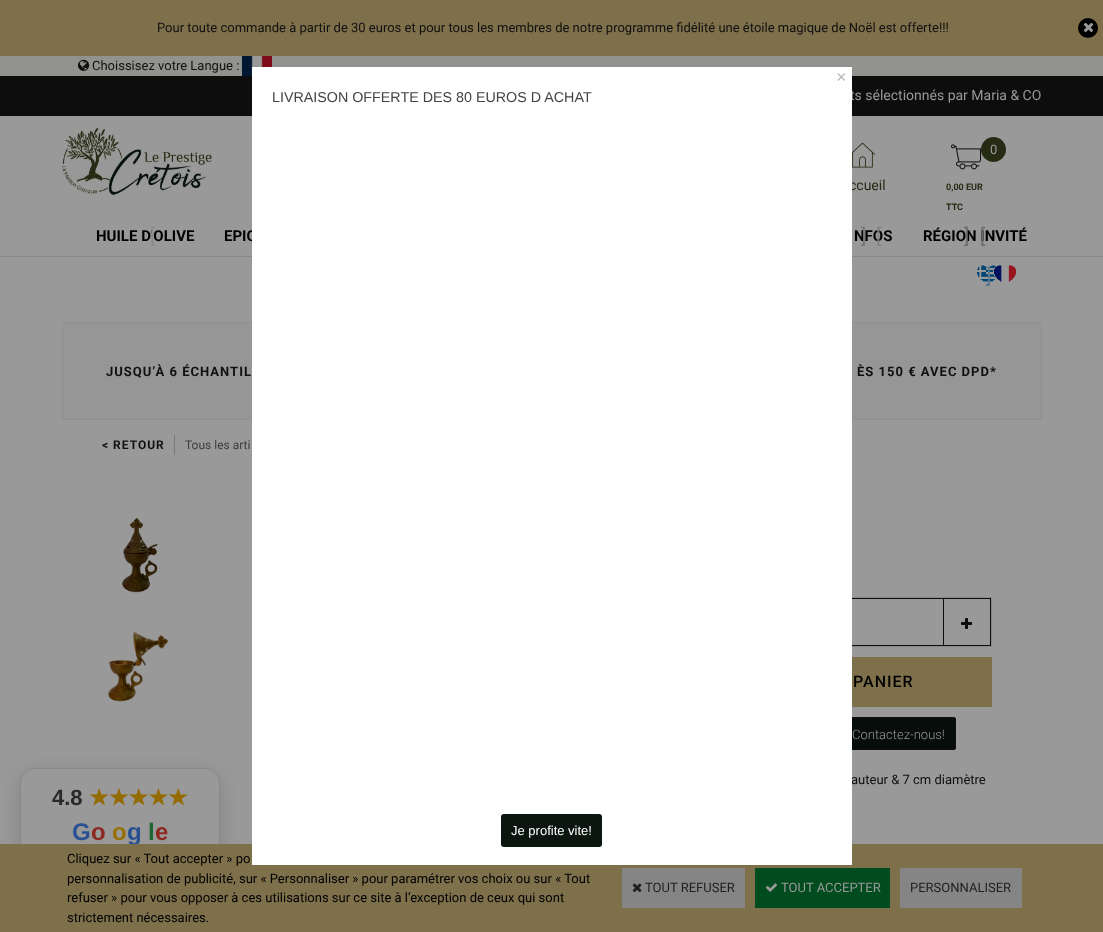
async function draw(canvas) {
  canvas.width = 1103;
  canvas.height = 932;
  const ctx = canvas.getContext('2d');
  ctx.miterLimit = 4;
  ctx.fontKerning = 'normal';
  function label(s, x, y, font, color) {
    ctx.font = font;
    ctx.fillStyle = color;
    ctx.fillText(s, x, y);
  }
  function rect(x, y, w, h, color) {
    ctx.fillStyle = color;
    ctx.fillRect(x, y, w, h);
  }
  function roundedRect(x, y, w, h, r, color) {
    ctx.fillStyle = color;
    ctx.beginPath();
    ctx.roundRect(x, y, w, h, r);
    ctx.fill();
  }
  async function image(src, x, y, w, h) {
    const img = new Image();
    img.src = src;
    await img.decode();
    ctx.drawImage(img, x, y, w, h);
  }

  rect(0, 0, 1103, 932, '#999');
  rect(0, 0, 1103, 56, '#7e704b');
  label('Pour toute commande à partir de 30 euros et pour tous les membres de notre programme fidélité une étoile magique de Noël est offerte!!!', 157, 32, '13px Roboto', '#101010');
  ctx.fillStyle = '#000';
  ctx.beginPath();
  ctx.arc(1088, 28, 10, 0, 2 * Math.PI);
  ctx.fill();
  await image('assets/img1.png', 1083, 22, 11, 11);
  rect(0, 56, 1103, 20, '#92938e');
  await image('assets/img2.png', 78, 59, 12, 12);
  label('Choissisez votre Langue :', 92, 70, '13px Roboto', '#101010');
  await image('assets/img3.png', 242, 56, 30, 20);
  rect(0, 76, 1103, 40, '#0d0d0d');
  rect(0, 256, 1103, 1, '#888');
  label('ts sélectionnés par Maria & CO', 850, 100, '14px Roboto', '#999');
  label('ccueil', 849, 190, '14px Roboto', '#262b13');
  label('EPIC', 224, 241, 'bold 15px Roboto', '#000');
  ctx.fillStyle = '#969696';
  ctx.beginPath();
  ctx.rect(62.5, 322.5, 979, 97);
  ctx.fill();
  ctx.strokeStyle = '#8f8f8f';
  ctx.stroke();
  ctx.strokeStyle = '#888';
  ctx.strokeRect(666.5, 597.5, 325, 49);
  ctx.fillStyle = '#070d0a';
  ctx.beginPath();
  ctx.roundRect(666.5, 717.5, 289, 32, 1.5);
  ctx.fill();
  ctx.strokeStyle = '#101010';
  ctx.stroke();
  label('auteur & 7 cm diamètre', 851, 784, '13px Roboto', '#101010');
  ctx.fillStyle = '#00000026';
  ctx.filter = 'blur(9px)';
  ctx.beginPath();
  ctx.roundRect(20, 774, 200, 144, 14);
  ctx.fill();
  ctx.filter = 'none';
  ctx.fillStyle = '#999';
  ctx.beginPath();
  ctx.roundRect(20.5, 768.5, 199, 143, 13.5);
  ctx.fill();
  ctx.strokeStyle = '#898989';
  ctx.stroke();
  label('g', 127, 840, 'bold 24px Liberation Sans', '#285092');
  rect(0, 844, 1103, 88, '#7e704b');
  rect(252, 67, 600, 798, '#fff');
  label('×', 836, 83, '18px Liberation Sans', '#bbb');
  label('LIVRAISON OFFERTE DES 80 EUROS D ACHAT', 272, 102, '14.3px Liberation Sans', '#444');
  roundedRect(501, 814, 101, 33, 3, '#0b1610');
  label('Je profite vite!', 511, 835, '13px Liberation Sans', '#fff');
  await image('assets/img4.png', 62, 127, 150, 69);
  await image('assets/img5.png', 852, 142, 23, 26);
  await image('assets/img6.png', 951, 144, 30, 26);
  ctx.fillStyle = '#262b13';
  ctx.beginPath();
  ctx.arc(993.5, 149.5, 12.5, 0, 2 * Math.PI);
  ctx.fill();
  label('0', 990, 154, '13px Roboto', '#999');
  label('0,00 EUR', 946, 190, 'bold 9px Roboto', '#262b13');
  label('TTC', 946, 210, 'bold 9px Roboto', '#262b13');
  label('HUILE D\'OLIVE', 96, 241, 'bold 15px Roboto', '#000');
  label('[', 150, 243, '20px Roboto', '#8c8c8c');
  label('NFOS', 854, 241, 'bold 15px Roboto', '#000');
  label(']', 861, 243, '20px Roboto', '#737373');
  label('[', 876, 243, '20px Roboto', '#818181');
  label('RÉGION INVITÉ', 923, 241, 'bold 15px Roboto', '#000');
  label(']', 964, 243, '20px Roboto', '#6a6a6a');
  label('[', 980, 243, '20px Roboto', '#6a6a6a');
  await image('assets/img7.png', 977, 265, 39, 21);
  label(']', 986, 283, '20px Roboto', '#5f798b');
  ctx.letterSpacing = '1px';
  label('JUSQU’À 6 ÉCHANTIL', 106, 376, 'bold 13px Roboto', '#101010');
  label('ÈS 150 € AVEC DPD*', 857, 376, 'bold 13px Roboto', '#101010');
  label('< RETOUR', 102, 449, 'bold 12px Roboto', '#101010');
  rect(174, 435, 1, 20, '#7a7a7a');
  ctx.letterSpacing = '0px';
  label('Tous les arti', 185, 449, '12px Roboto', '#3d3d3d');
  await image('assets/img8.png', 122, 518, 36, 75);
  await image('assets/img9.png', 108, 631, 61, 71);
  rect(852, 598, 91, 1, '#0d0d0d');
  rect(852, 645, 91, 1, '#0d0d0d');
  ctx.strokeStyle = '#0d0d0d';
  ctx.strokeRect(943.5, 598.5, 47, 47);
  await image('assets/img10.png', 961, 618, 11, 11);
  rect(852, 657, 140, 50, '#7e704b');
  ctx.letterSpacing = '1px';
  label('PANIER', 853, 687, '500 16px Roboto', '#000');
  ctx.letterSpacing = '0px';
  label('Contactez-nous!', 852, 739, '300 13px Roboto', '#999');
  label('Cliquez sur « Tout accepter » po', 67, 863, '13px Roboto', '#000');
  label('personnalisation de publicité, sur « Personnaliser » pour paramétrer vos choix ou sur « Tout', 67, 883, '13px Roboto', '#000');
  label('refuser » pour vous opposer à ces utilisations sur ce site à l’exception de ceux qui sont', 67, 902, '13px Roboto', '#000');
  label('strictement nécessaires.', 67, 922, '13px Roboto', '#000');
  rect(622, 868, 123, 40, '#858585');
  await image('assets/img11.png', 632, 883, 10, 10);
  label('TOUT REFUSER', 645, 892, '13px Roboto', '#1f1f1f');
  rect(755, 868, 135, 40, '#004c1f');
  await image('assets/img12.png', 765, 883, 13, 9);
  label('TOUT ACCEPTER', 781, 892, '13px Roboto', '#999');
  rect(900, 868, 122, 40, '#858585');
  label('PERSONNALISER', 910, 892, '13px Roboto', '#1f1f1f');
  label('4.8', 52, 805, 'bold 22px Liberation Sans', '#292929');
  label('★★★★★', 89, 805, 'bold 22px DejaVu Sans', '#936b01');
  label('G', 72, 840, 'bold 24px Liberation Sans', '#285092');
  label('o', 91, 840, 'bold 24px Liberation Sans', '#8c2820');
  label('o', 112, 840, 'bold 24px Liberation Sans', '#977103');
  label('l', 148, 840, 'bold 24px Liberation Sans', '#1f6532');
  label('e', 155, 840, 'bold 24px Liberation Sans', '#8c2820');
}

draw(document.querySelector('canvas'));
